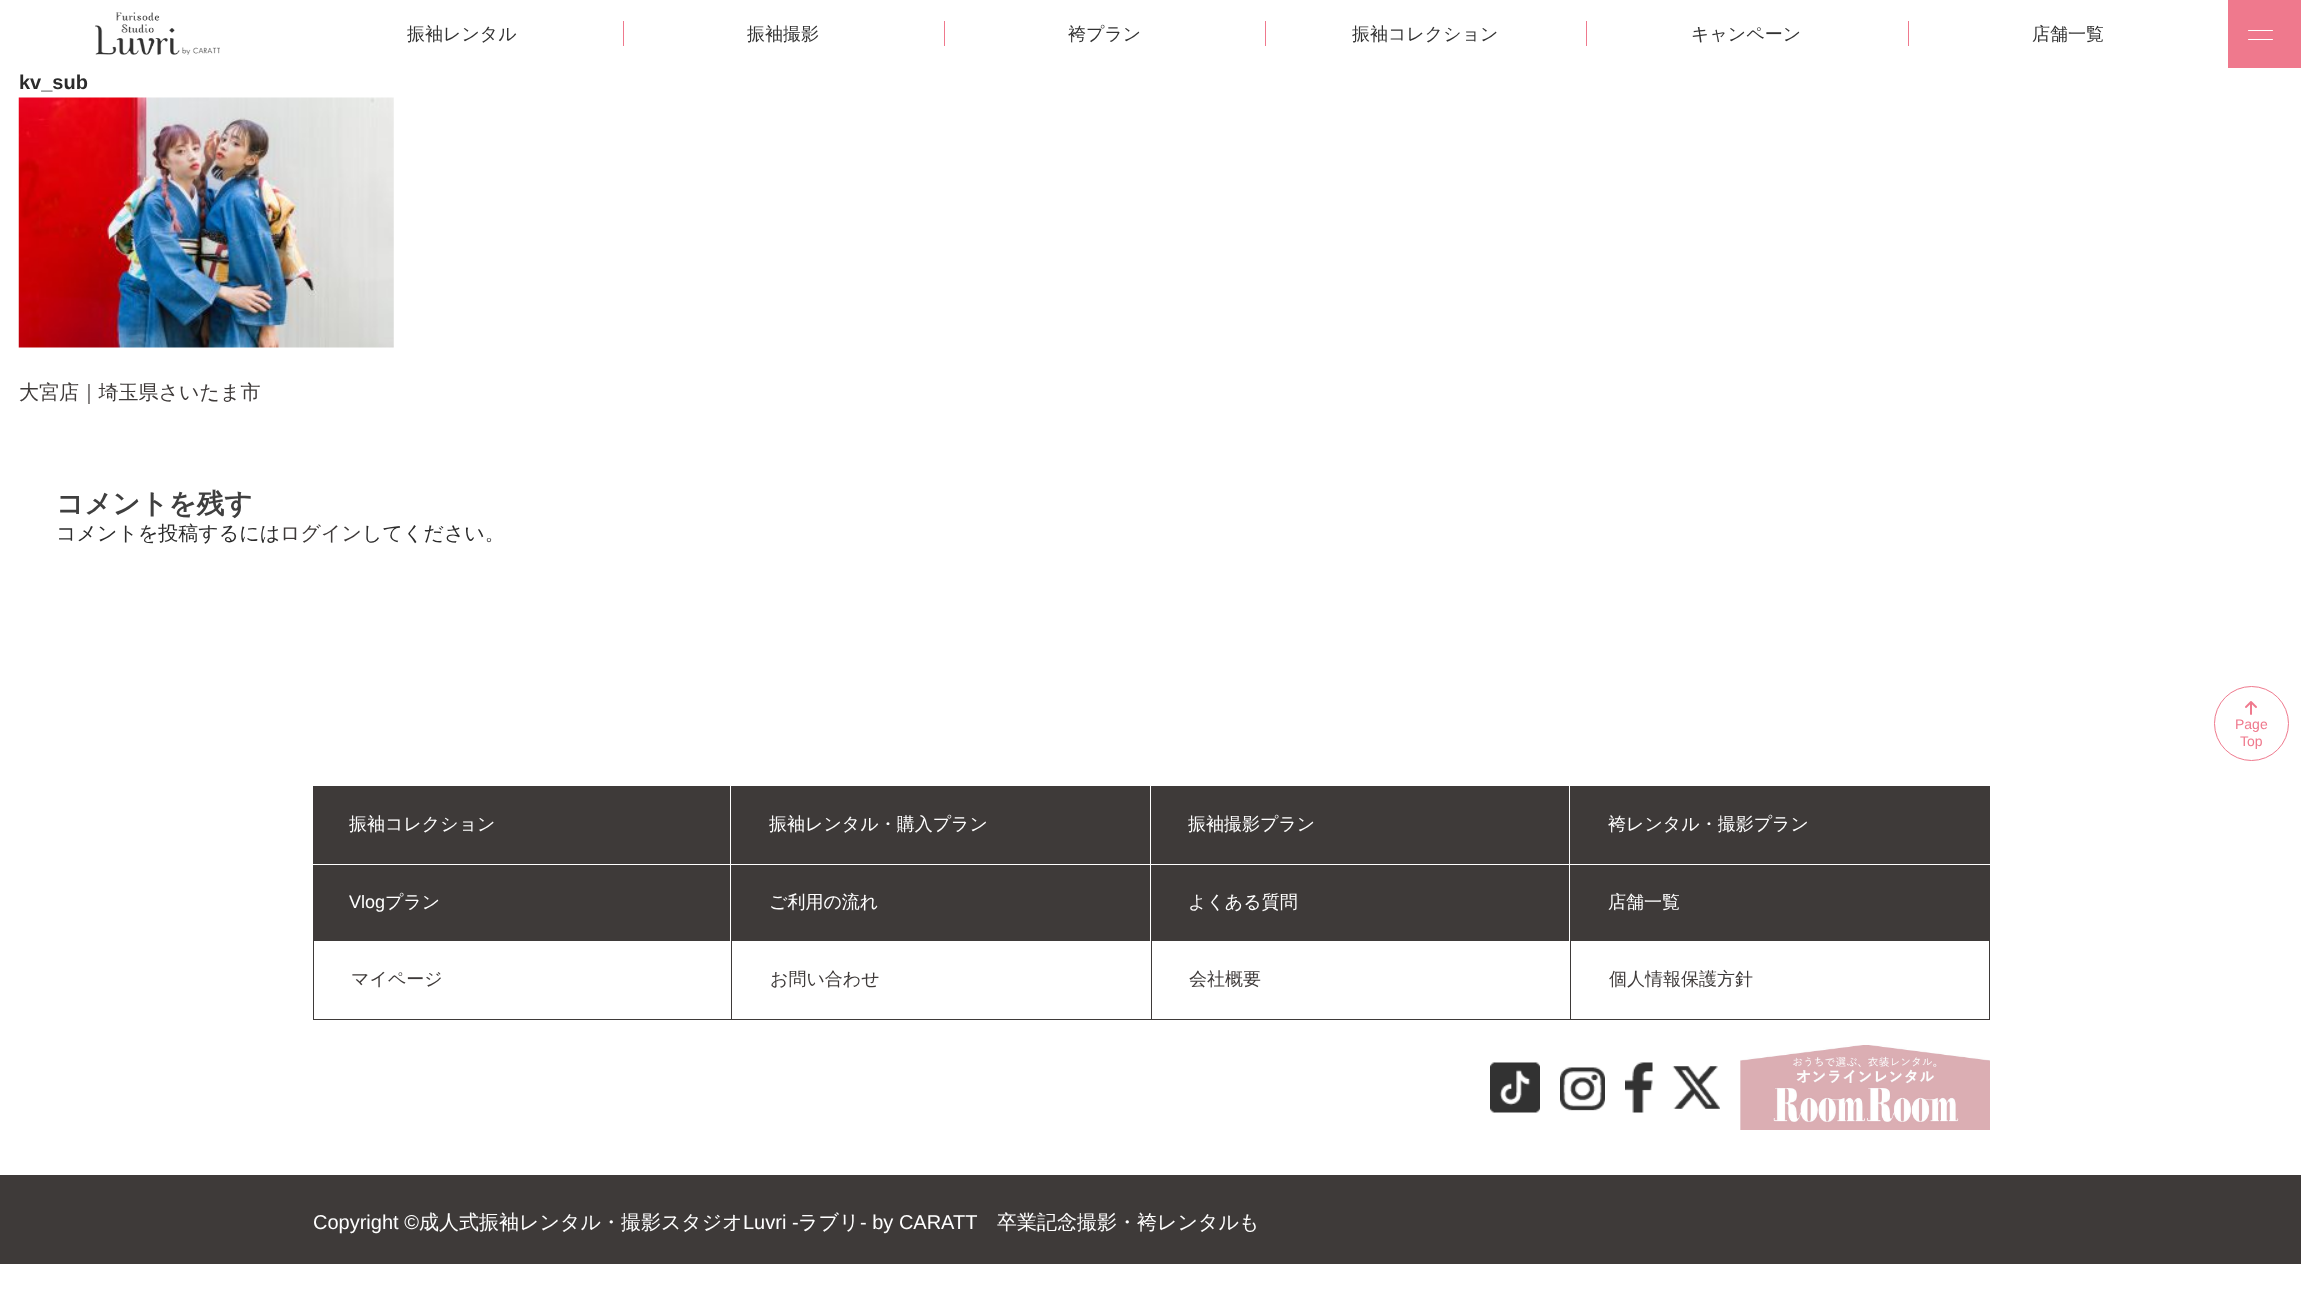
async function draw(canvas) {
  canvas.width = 2301;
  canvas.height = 1304;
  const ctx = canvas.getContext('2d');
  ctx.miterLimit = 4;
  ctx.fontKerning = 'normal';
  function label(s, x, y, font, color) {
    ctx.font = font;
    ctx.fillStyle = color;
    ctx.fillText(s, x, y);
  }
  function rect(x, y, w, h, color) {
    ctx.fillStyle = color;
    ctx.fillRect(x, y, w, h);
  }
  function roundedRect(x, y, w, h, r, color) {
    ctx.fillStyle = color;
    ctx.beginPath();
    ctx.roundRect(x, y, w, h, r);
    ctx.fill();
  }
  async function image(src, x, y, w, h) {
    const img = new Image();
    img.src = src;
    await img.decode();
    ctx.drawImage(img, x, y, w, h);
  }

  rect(0, 0, 2301, 1304, '#fff');
  await image('assets/img1.png', 95, 12, 125, 43);
  label('振袖レンタル', 407, 40, '500 18px WenQuanYi Zen Hei', '#333');
  rect(623, 21, 1, 25, '#ef798d');
  label('振袖撮影', 747, 40, '500 18px WenQuanYi Zen Hei', '#333');
  rect(944, 21, 1, 25, '#ef798d');
  label('袴プラン', 1068, 40, '500 18px WenQuanYi Zen Hei', '#333');
  rect(1265, 21, 1, 25, '#ef798d');
  label('振袖コレクション', 1352, 40, '500 18px WenQuanYi Zen Hei', '#333');
  rect(1586, 21, 1, 25, '#ef798d');
  label('キャンペーン', 1691, 40, '500 18px WenQuanYi Zen Hei', '#333');
  rect(1908, 21, 1, 25, '#ef798d');
  label('店舗一覧', 2032, 40, '500 18px WenQuanYi Zen Hei', '#333');
  rect(2228, 0, 73, 68, '#ef798d');
  roundedRect(2248, 30, 25, 1, 0.5, '#fff');
  roundedRect(2248, 39, 25, 1, 0.5, '#fff');
  label('kv_sub', 19, 89, 'bold 20px Liberation Sans', '#2b2b2b');
  await image('assets/img2.png', 18, 97, 376, 251);
  label('大宮店｜埼玉県さいたま市', 19, 399, '500 20px WenQuanYi Zen Hei', '#3e3a39');
  label('コメントを残す', 56, 513, 'bold 27.5px WenQuanYi Zen Hei', '#3f3f3f');
  label('コメントを投稿するには', 56, 540, '500 20px WenQuanYi Zen Hei', '#2b2b2b');
  label('ログイン', 280, 540, '500 20px WenQuanYi Zen Hei', '#3e3a39');
  label('してください。', 362, 540, '500 20px WenQuanYi Zen Hei', '#2b2b2b');
  ctx.beginPath();
  ctx.arc(2251.5, 723.5, 37, 0, 2 * Math.PI);
  ctx.strokeStyle = '#ef798d';
  ctx.stroke();
  await image('assets/img3.png', 2245, 701, 12, 14);
  label('Page', 2235, 729, '14px Liberation Sans', '#ef798d');
  label('Top', 2240, 746, '14px Liberation Sans', '#ef798d');
  rect(313, 786, 417, 78, '#3e3a39');
  label('振袖コレクション', 349, 830, '500 18px WenQuanYi Zen Hei', '#fff');
  rect(731, 786, 419, 78, '#3e3a39');
  label('振袖レンタル・購入プラン', 769, 830, '500 18px WenQuanYi Zen Hei', '#fff');
  rect(1151, 786, 418, 78, '#3e3a39');
  label('振袖撮影プラン', 1188, 830, '500 18px WenQuanYi Zen Hei', '#fff');
  rect(1570, 786, 420, 78, '#3e3a39');
  label('袴レンタル・撮影プラン', 1608, 830, '500 18px WenQuanYi Zen Hei', '#fff');
  rect(313, 865, 417, 76, '#3e3a39');
  label('Vlog', 349, 908, '18px Liberation Sans', '#fff');
  label('プラン', 385, 908, '500 18px WenQuanYi Zen Hei', '#fff');
  rect(731, 865, 419, 76, '#3e3a39');
  label('ご利用の流れ', 769, 908, '500 18px WenQuanYi Zen Hei', '#fff');
  rect(1151, 865, 418, 76, '#3e3a39');
  label('よくある質問', 1188, 908, '500 18px WenQuanYi Zen Hei', '#fff');
  rect(1570, 865, 420, 76, '#3e3a39');
  label('店舗一覧', 1608, 908, '500 18px WenQuanYi Zen Hei', '#fff');
  rect(313, 1019, 1257, 1, '#3e3a39');
  rect(313, 941, 1, 79, '#3e3a39');
  label('マイページ', 351, 985, '500 18px WenQuanYi Zen Hei', '#3e3a39');
  rect(731, 941, 1, 79, '#3e3a39');
  label('お問い合わせ', 770, 985, '500 18px WenQuanYi Zen Hei', '#3e3a39');
  rect(1151, 941, 1, 79, '#3e3a39');
  label('会社概要', 1189, 985, '500 18px WenQuanYi Zen Hei', '#3e3a39');
  rect(1989, 941, 1, 79, '#3e3a39');
  rect(1570, 1019, 420, 1, '#3e3a39');
  rect(1570, 941, 1, 79, '#3e3a39');
  label('個人情報保護方針', 1609, 985, '500 18px WenQuanYi Zen Hei', '#3e3a39');
  await image('assets/img4.png', 1490, 1062, 50, 51);
  await image('assets/img5.png', 1560, 1067, 45, 44);
  await image('assets/img6.png', 1625, 1062, 28, 51);
  await image('assets/img7.png', 1672, 1066, 48, 43);
  await image('assets/img8.png', 1740, 1045, 250, 85);
  rect(0, 1175, 2301, 89, '#3e3a39');
  label('Copyright ©', 313, 1229, '20px Liberation Sans', '#fff');
  label('成人式振袖レンタル・撮影スタジオ', 419, 1229, '500 20px WenQuanYi Zen Hei', '#fff');
  label('Luvri -', 743, 1229, '20px Liberation Sans', '#fff');
  label('ラブリ', 798, 1229, '500 20px WenQuanYi Zen Hei', '#fff');
  label('- by CARATT', 860, 1229, '20px Liberation Sans', '#fff');
  label('卒業記念撮影・袴レンタルも', 997, 1229, '500 20px WenQuanYi Zen Hei', '#fff');
}

draw(document.querySelector('canvas'));
